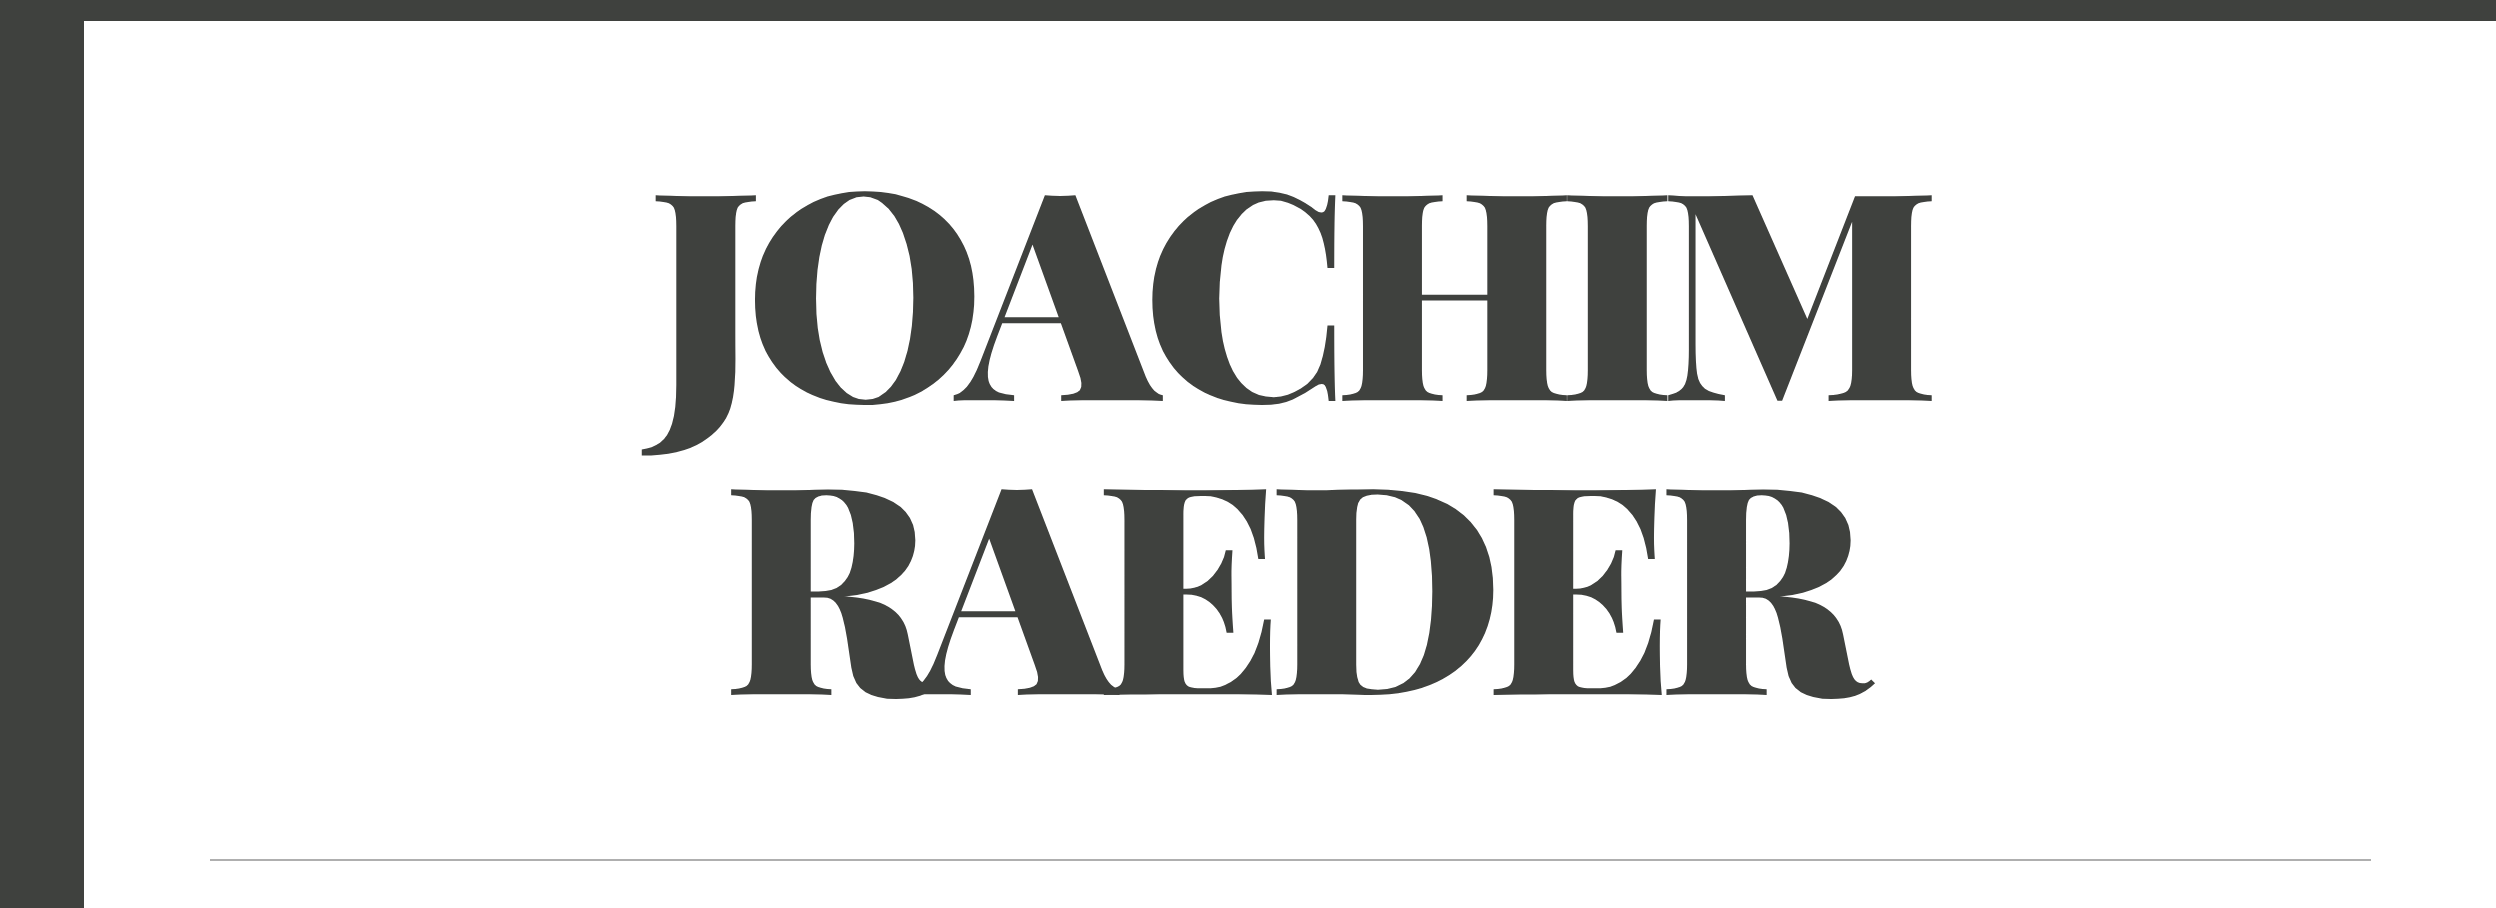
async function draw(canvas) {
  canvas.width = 2496;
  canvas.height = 908;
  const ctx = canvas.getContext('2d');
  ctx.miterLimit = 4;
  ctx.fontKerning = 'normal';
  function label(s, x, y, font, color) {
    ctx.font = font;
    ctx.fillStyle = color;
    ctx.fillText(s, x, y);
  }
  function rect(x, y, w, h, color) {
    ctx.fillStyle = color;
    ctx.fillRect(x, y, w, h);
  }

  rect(0, 0, 2496, 908, '#fff');
  rect(0, 0, 84, 908, '#3f413e');
  rect(84, 0, 2412, 21, '#3f413e');
  ctx.letterSpacing = '-16px';
  label('JOACHIM', 649, 401, '900 290.5px Playfair Display', '#3f413e');
  label('RAEDER', 723, 695, '900 290.5px Playfair Display', '#3f413e');
  rect(210, 859, 2161, 2, '#afafaf');
}

draw(document.querySelector('canvas'));
